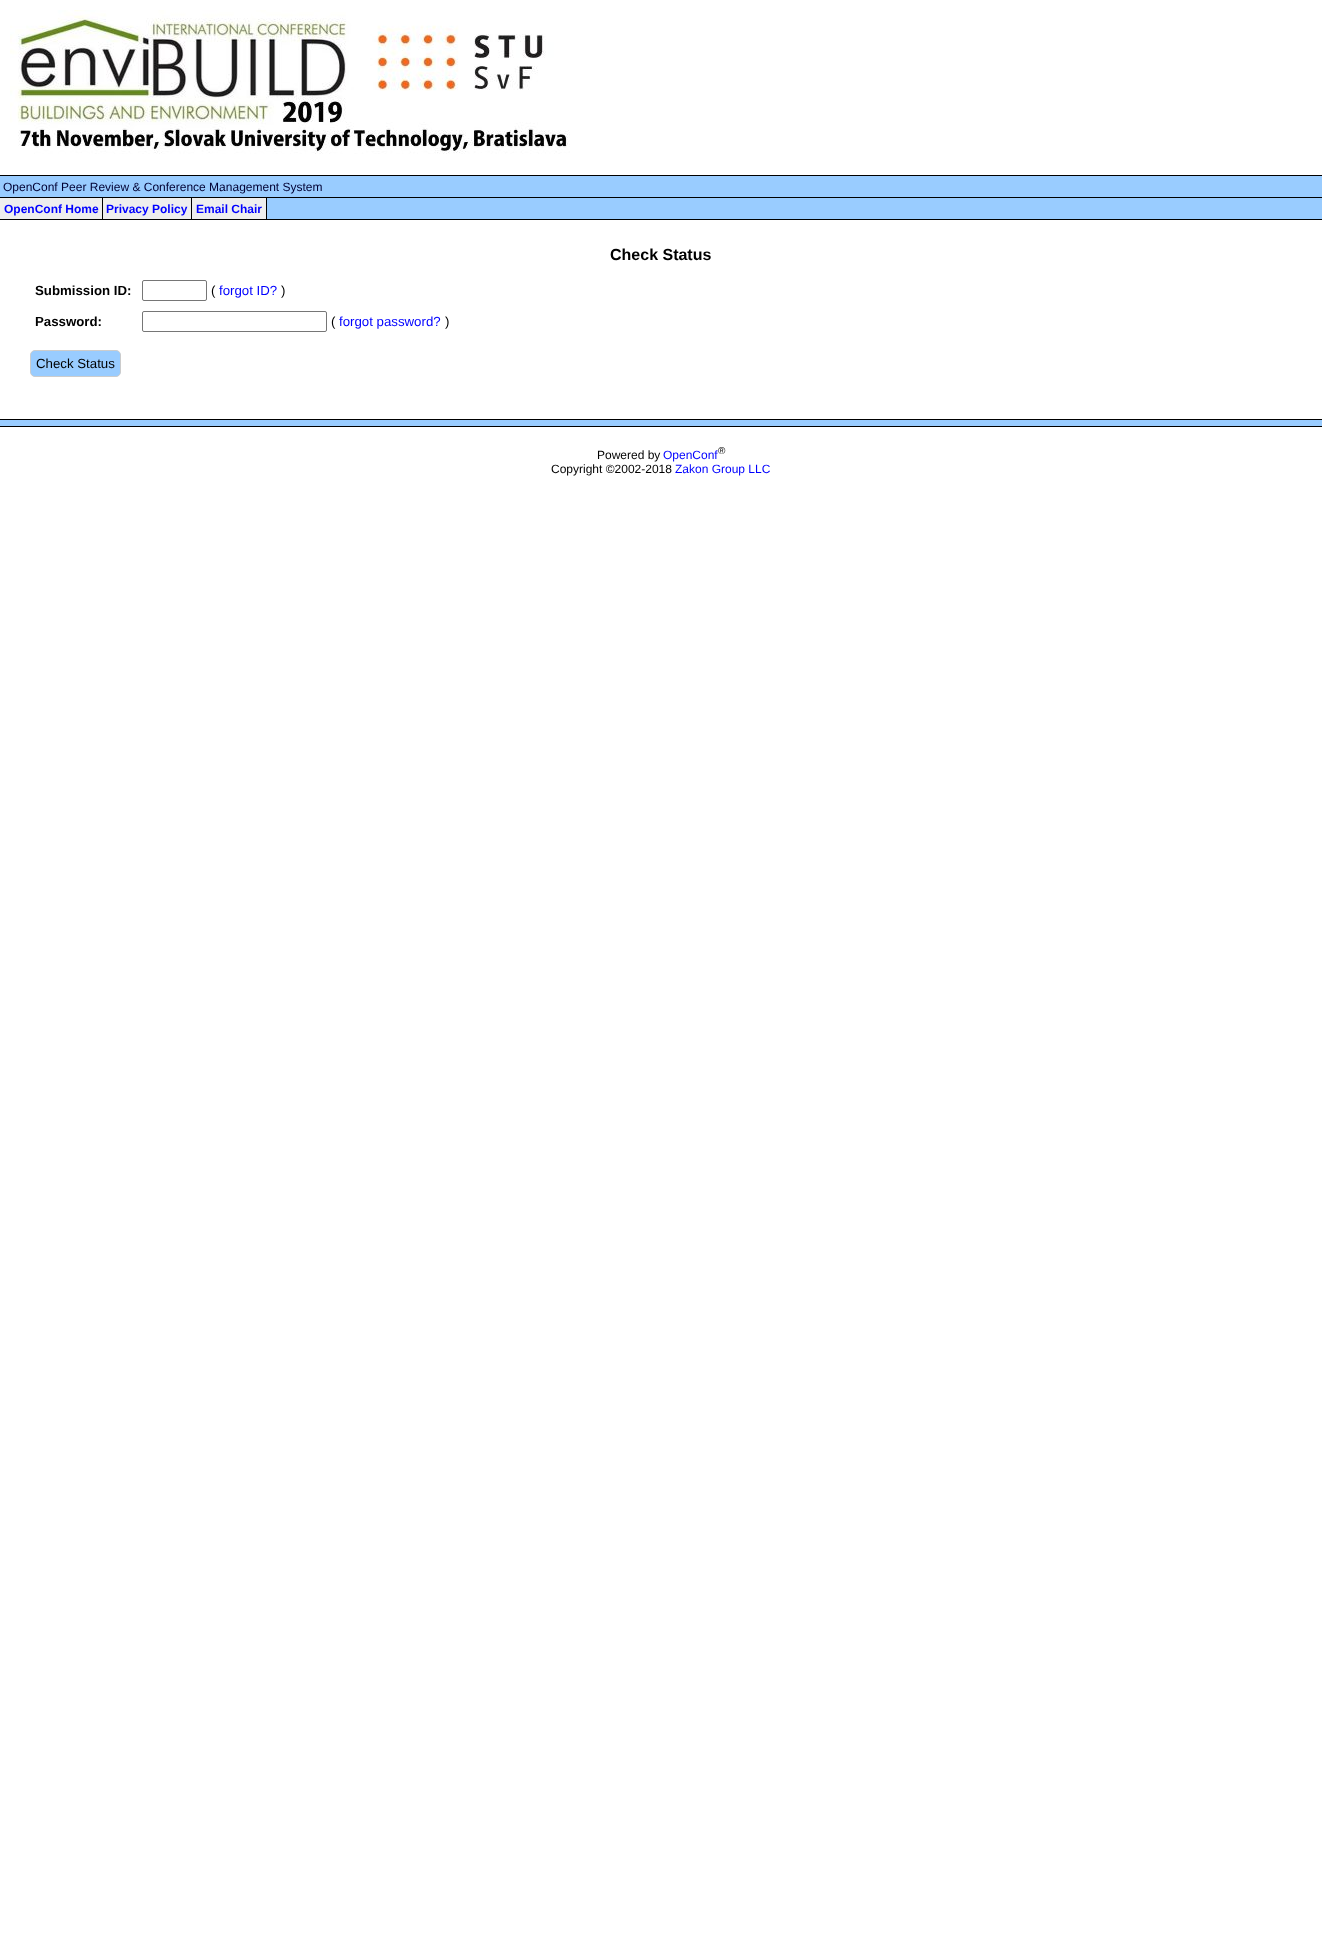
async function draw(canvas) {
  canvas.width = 1322;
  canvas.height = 1954;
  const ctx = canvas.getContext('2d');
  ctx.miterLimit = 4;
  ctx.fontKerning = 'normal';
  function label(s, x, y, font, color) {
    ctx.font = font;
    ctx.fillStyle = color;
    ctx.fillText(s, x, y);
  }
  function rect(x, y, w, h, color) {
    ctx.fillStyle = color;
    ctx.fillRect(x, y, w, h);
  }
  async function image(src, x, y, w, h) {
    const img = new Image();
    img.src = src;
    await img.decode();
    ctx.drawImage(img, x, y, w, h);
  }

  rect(0, 0, 1322, 1954, '#fff');
  await image('assets/img1.png', 10, 10, 560, 144);
  rect(0, 176, 1322, 21, '#9cf');
  rect(0, 175, 1322, 1, '#000');
  rect(0, 197, 1322, 1, '#000');
  label('OpenConf Peer Review & Conference Management System', 3, 191, '12px Liberation Sans', '#003');
  rect(267, 198, 1055, 21, '#9cf');
  rect(0, 219, 1322, 1, '#000');
  rect(0, 198, 102, 21, '#eee');
  rect(102, 198, 1, 21, '#000');
  label('OpenConf Home', 4, 213, 'bold 12px Liberation Sans', '#00f');
  rect(103, 198, 88, 21, '#eee');
  rect(191, 198, 1, 21, '#000');
  label('Privacy Policy', 106, 213, 'bold 12px Liberation Sans', '#00f');
  rect(192, 198, 74, 21, '#eee');
  rect(266, 198, 1, 21, '#000');
  label('Email Chair', 196, 213, 'bold 12px Liberation Sans', '#00f');
  label('Check Status', 610, 260, 'bold 16px Liberation Sans', '#000');
  label('Submission ID:', 35, 295, 'bold 13.25px Liberation Sans', '#000');
  ctx.beginPath();
  ctx.roundRect(142.5, 280.5, 64, 20, 1.5);
  ctx.strokeStyle = '#767676';
  ctx.stroke();
  label('(', 211, 295, '13.25px Liberation Sans', '#000');
  label('forgot ID?', 219, 295, '13.25px Liberation Sans', '#00f');
  label(')', 281, 295, '13.25px Liberation Sans', '#000');
  label('Password:', 35, 326, 'bold 13.25px Liberation Sans', '#000');
  ctx.beginPath();
  ctx.roundRect(142.5, 311.5, 184, 20, 1.5);
  ctx.stroke();
  label('(', 331, 326, '13.25px Liberation Sans', '#000');
  label('forgot password?', 339, 326, '13.25px Liberation Sans', '#00f');
  label(')', 445, 326, '13.25px Liberation Sans', '#000');
  ctx.fillStyle = '#9cf';
  ctx.beginPath();
  ctx.roundRect(30.5, 350.5, 90, 26, 4.5);
  ctx.fill();
  ctx.strokeStyle = '#ccc';
  ctx.stroke();
  label('Check Status', 36, 368, '13.25px Liberation Sans', '#000');
  rect(0, 420, 1322, 6, '#9cf');
  rect(0, 419, 1322, 1, '#000');
  rect(0, 426, 1322, 1, '#000');
  label('Powered by', 597, 459, '12px Liberation Sans', '#000');
  label('OpenConf', 663, 459, '12px Liberation Sans', '#00f');
  label('®', 718, 454, '10px Liberation Sans', '#000');
  label('Copyright ©2002-2018', 551, 473, '12px Liberation Sans', '#000');
  label('Zakon Group LLC', 675, 473, '12px Liberation Sans', '#00f');
}

draw(document.querySelector('canvas'));
